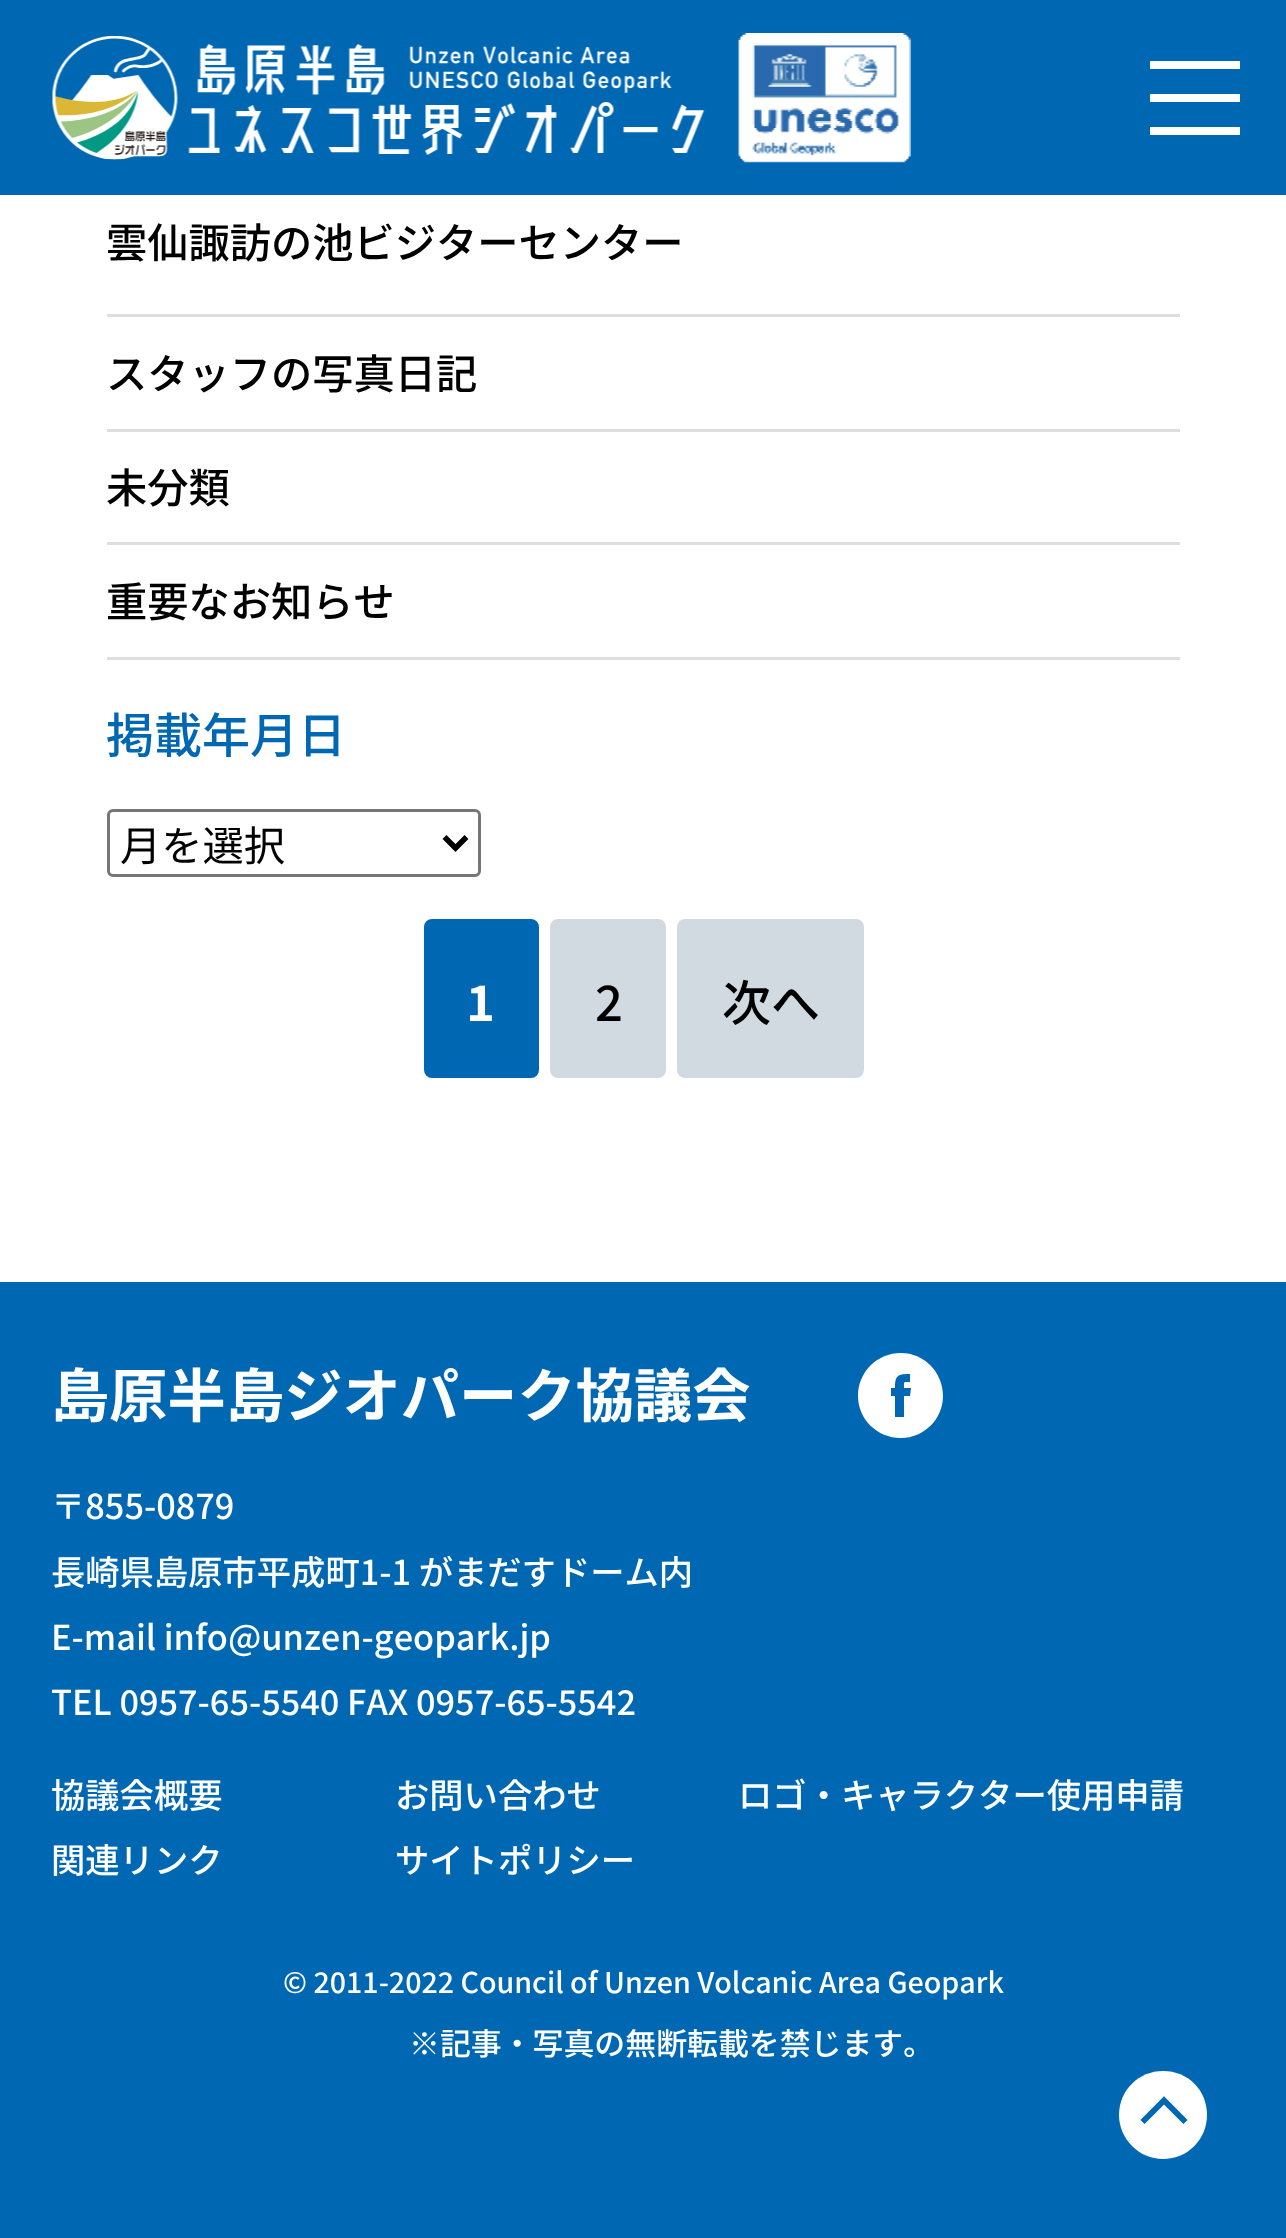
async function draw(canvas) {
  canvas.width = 1286;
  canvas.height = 2238;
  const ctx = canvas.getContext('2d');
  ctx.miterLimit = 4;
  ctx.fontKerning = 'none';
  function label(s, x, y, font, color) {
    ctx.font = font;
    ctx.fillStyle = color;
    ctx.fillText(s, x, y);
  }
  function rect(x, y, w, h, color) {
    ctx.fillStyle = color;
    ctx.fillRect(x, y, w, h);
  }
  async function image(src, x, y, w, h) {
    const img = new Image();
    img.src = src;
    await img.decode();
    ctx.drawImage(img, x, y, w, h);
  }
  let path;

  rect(0, 0, 1286, 2238, '#fff');
  rect(0, 0, 1286, 195, '#0068b2');
  await image('assets/img1.png', 52, 36, 653, 124);
  await image('assets/img2.png', 738, 33, 173, 130);
  rect(1150, 61, 90, 8, '#fff');
  rect(1150, 94, 90, 8, '#fff');
  rect(1150, 127, 90, 8, '#fff');
  rect(107, 657, 1073, 3, '#dedede');
  label('雲仙諏訪の池ビジターセンター', 106, 258, '500 41.25px Noto Sans JP', '#000');
  rect(107, 314, 1073, 3, '#dedede');
  label('スタッフの写真日記', 106, 389, '500 41.25px Noto Sans JP', '#000');
  rect(107, 429, 1073, 3, '#dedede');
  label('未分類', 106, 503, '500 41.25px Noto Sans JP', '#000');
  rect(107, 542, 1073, 3, '#dedede');
  label('重要なお知らせ', 106, 617, '500 41.25px Noto Sans JP', '#000');
  label('掲載年月日', 106, 753, '500 48px Noto Sans JP', '#0068b2');
  ctx.beginPath();
  ctx.roundRect(108.5, 810.5, 371, 65, 4.5);
  ctx.strokeStyle = '#767676';
  ctx.lineWidth = 3;
  ctx.stroke();
  path = new Path2D('M444.5 837L455.5 848L466.5 837');
  ctx.strokeStyle = '#000';
  ctx.lineWidth = 5.5;
  ctx.stroke(path);
  label('月を選択', 120, 861, '41.25px Noto Sans JP', '#000');
  ctx.fillStyle = '#0068b2';
  ctx.beginPath();
  ctx.roundRect(425.5, 920.5, 112, 156, 6.5);
  ctx.fill();
  ctx.strokeStyle = '#0068b2';
  ctx.lineWidth = 3;
  ctx.stroke();
  label('1', 466, 1021, 'bold 49px Noto Sans JP', '#fff');
  ctx.fillStyle = '#d2dae1';
  ctx.beginPath();
  ctx.roundRect(551.5, 920.5, 113, 156, 6.5);
  ctx.fill();
  ctx.strokeStyle = '#d2dae1';
  ctx.stroke();
  label('2', 595, 1021, '500 49px Noto Sans JP', '#000');
  ctx.fillStyle = '#d2dae1';
  ctx.beginPath();
  ctx.roundRect(678.5, 920.5, 184, 156, 6.5);
  ctx.fill();
  ctx.stroke();
  label('次へ', 722, 1021, '500 49px Noto Sans JP', '#000');
  rect(0, 1282, 1286, 956, '#0068b2');
  label('島原半島ジオパーク協議会', 51, 1417, 'bold 58.3px Noto Sans JP', '#fff');
  path = new Path2D('M901 1353C877 1353 858 1372 858 1396C858 1419 877 1438 901 1438C924 1438 943 1419 943 1396C943 1372 924 1353 901 1353ZM910 1396H904V1417H895V1396H891V1388H895C895 1375 898 1374 910 1374V1382C903 1382 904 1381 904 1388H911Z');
  ctx.fill(path);
  label('〒855-0879', 51, 1519, '500 34.3px Noto Sans JP', '#fff');
  label('長崎県島原市平成町1-1 がまだすドーム内', 51, 1585, '500 34.3px Noto Sans JP', '#fff');
  label('E-mail info@unzen-geopark.jp', 51, 1650, '500 34.3px Noto Sans JP', '#fff');
  label('TEL 0957-65-5540 FAX 0957-65-5542', 51, 1715, '500 34.3px Noto Sans JP', '#fff');
  label('協議会概要', 51, 1808, '500 34.3px Noto Sans JP', '#fff');
  label('お問い合わせ', 395, 1808, '500 34.3px Noto Sans JP', '#fff');
  label('ロゴ・キャラクター使用申請', 738, 1808, '500 34.3px Noto Sans JP', '#fff');
  label('関連リンク', 51, 1873, '500 34.3px Noto Sans JP', '#fff');
  label('サイトポリシー', 395, 1873, '500 34.3px Noto Sans JP', '#fff');
  label('© 2011-2022 Council of Unzen Volcanic Area Geopark', 283, 1993, '500 28.6px Noto Sans JP', '#fff');
  label('※記事・写真の無断転載を禁じます。', 409, 2055, '500 30.9px Noto Sans JP', '#fff');
  path = new Path2D('M1163 2159C1139 2159 1119 2139 1119 2115C1119 2090 1139 2071 1163 2071C1188 2071 1207 2090 1207 2115C1207 2139 1188 2159 1163 2159Z');
  ctx.fill(path);
  path = new Path2D('M1142.5 2122L1164 2100.5L1185.5 2122');
  ctx.strokeStyle = '#0068b2';
  ctx.lineWidth = 5.9;
  ctx.stroke(path);
}

draw(document.querySelector('canvas'));
